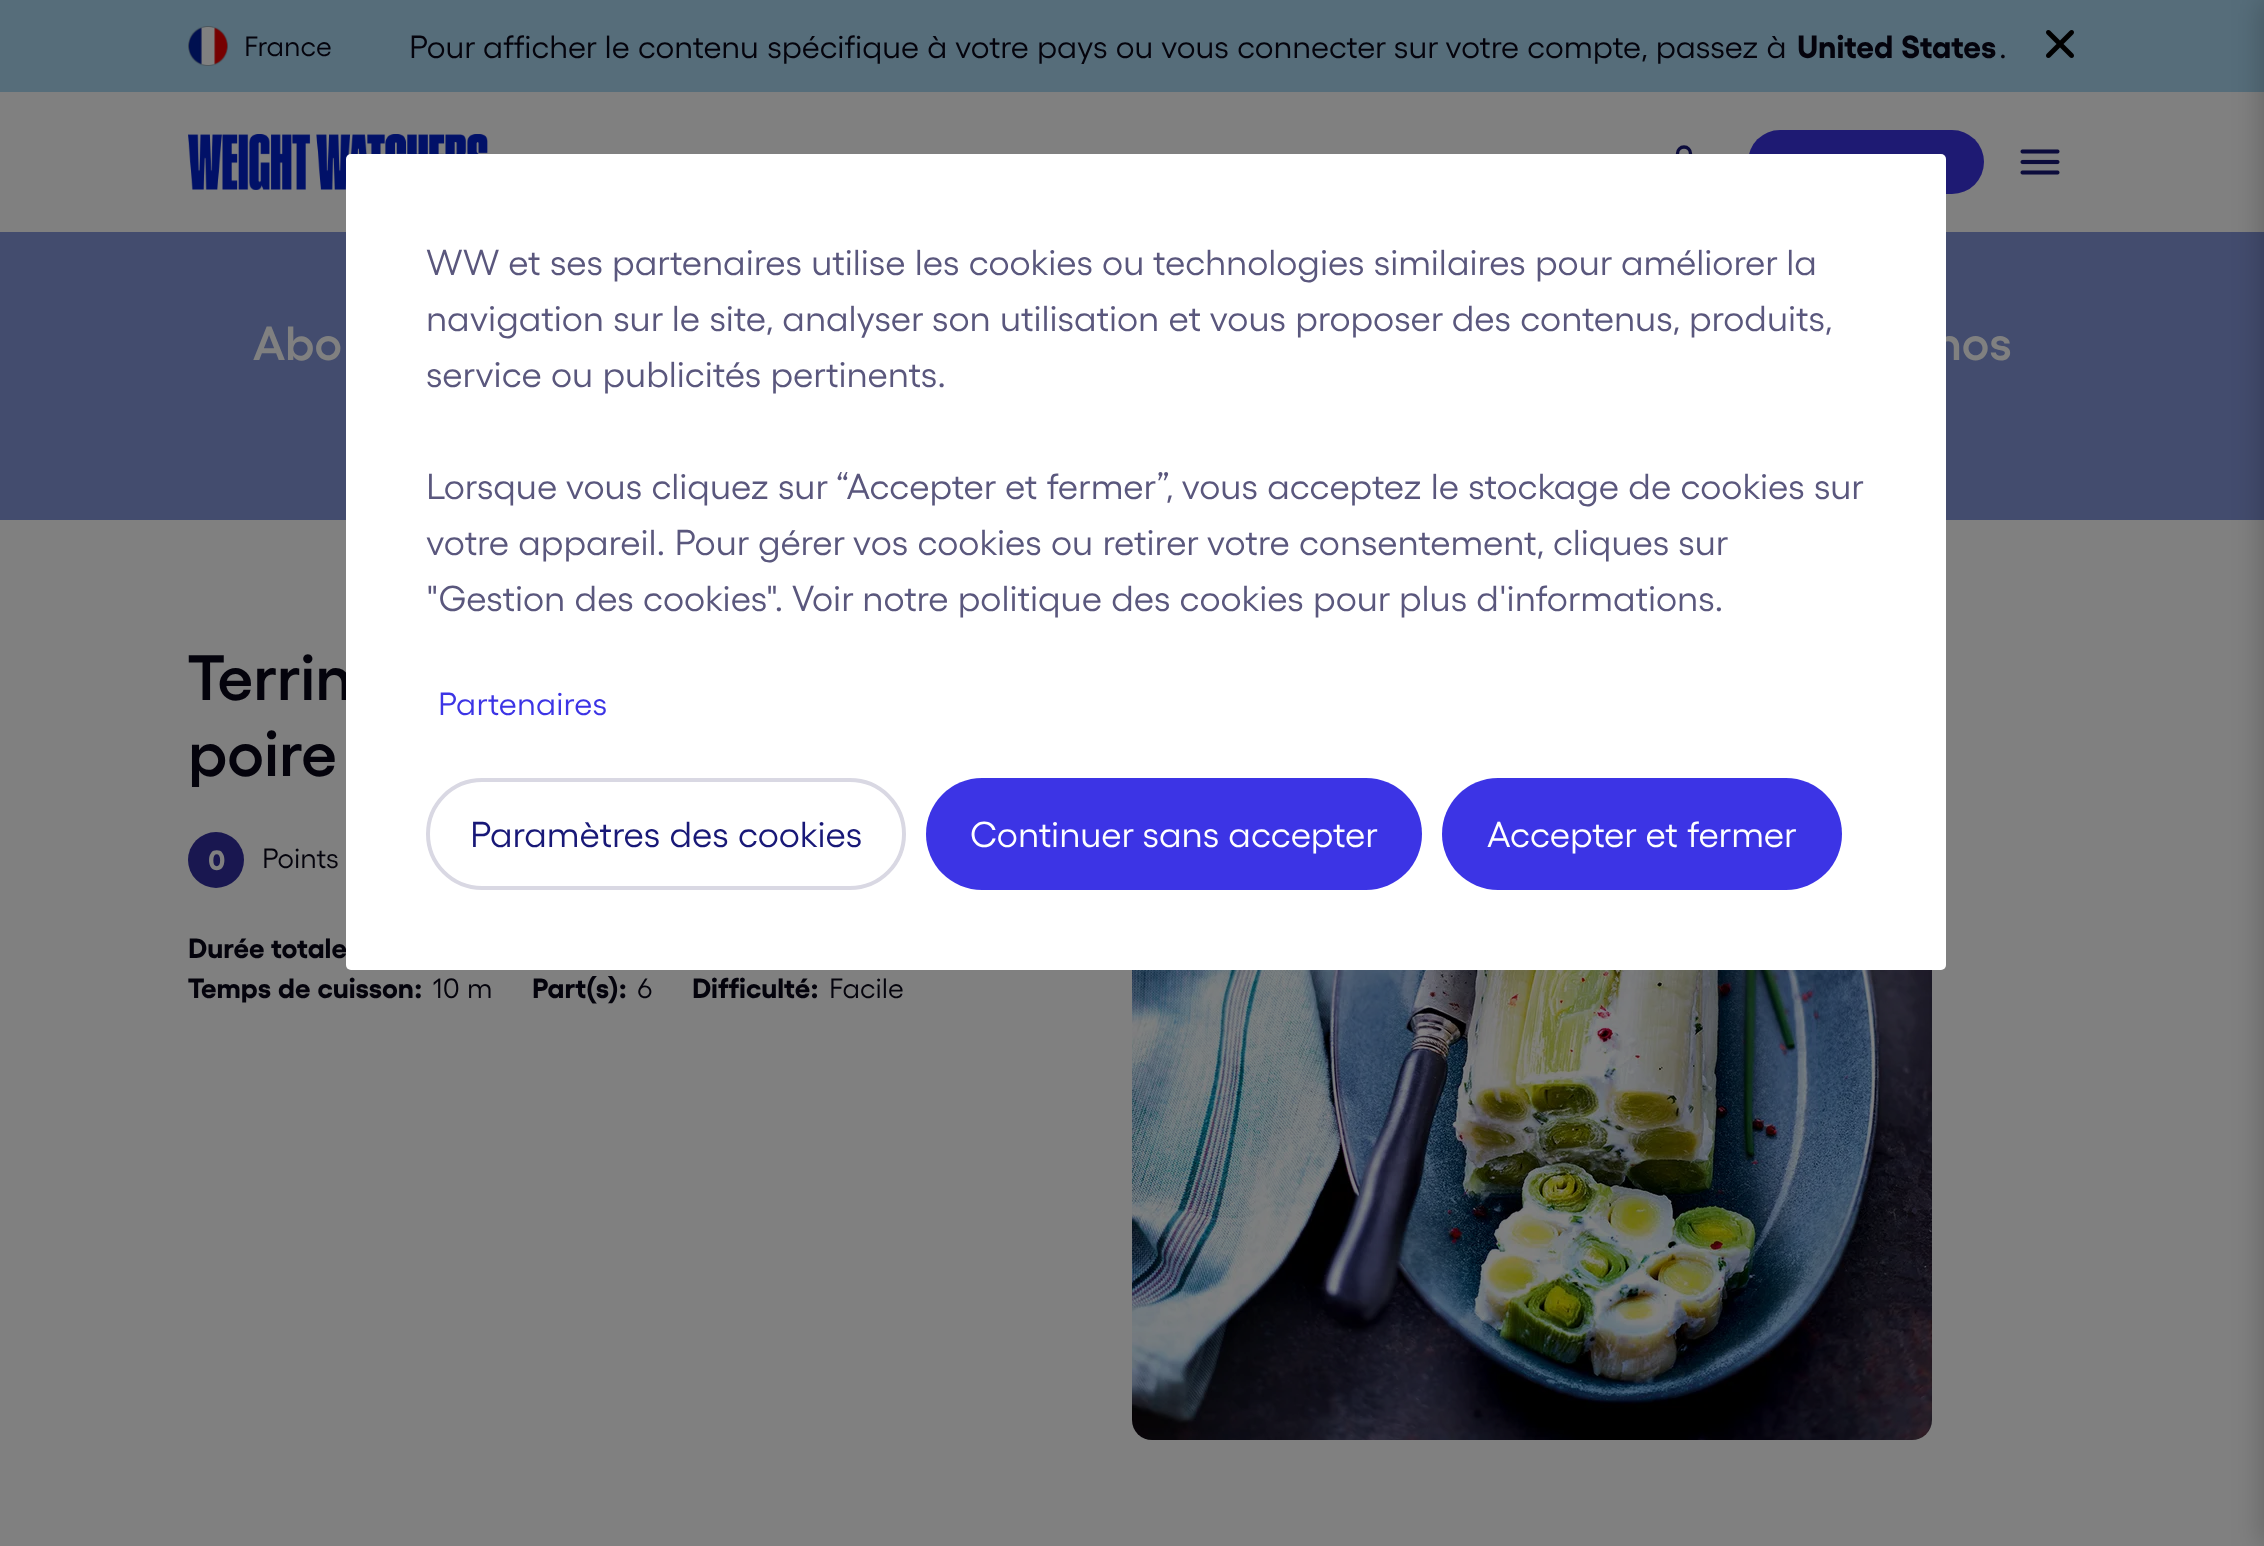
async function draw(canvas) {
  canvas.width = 2264;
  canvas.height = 1546;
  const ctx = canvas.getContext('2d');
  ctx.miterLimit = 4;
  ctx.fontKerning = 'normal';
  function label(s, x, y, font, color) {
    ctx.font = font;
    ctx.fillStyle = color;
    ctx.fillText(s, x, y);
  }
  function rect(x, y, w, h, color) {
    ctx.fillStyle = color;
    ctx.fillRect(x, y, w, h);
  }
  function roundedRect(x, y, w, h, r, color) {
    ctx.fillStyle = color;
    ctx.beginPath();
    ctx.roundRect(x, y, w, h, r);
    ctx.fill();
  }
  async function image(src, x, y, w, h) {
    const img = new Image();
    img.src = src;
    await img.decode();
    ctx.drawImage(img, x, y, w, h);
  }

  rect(0, 0, 2264, 1546, '#808080');
  await image('assets/img1.png', 188, 134, 300, 56);
  ctx.beginPath();
  ctx.arc(1684, 153.5, 6.5, 0, 2 * Math.PI);
  ctx.strokeStyle = '#0c0c3c';
  ctx.lineWidth = 3.3;
  ctx.stroke();
  roundedRect(1748, 130, 236, 64, 32, '#1e1a73');
  await image('assets/img2.png', 2020, 149, 40, 26);
  rect(0, 0, 2264, 92, '#566d7a');
  rect(0, 232, 2264, 288, '#434c6e');
  ctx.fillStyle = '#00000033';
  ctx.filter = 'blur(14px)';
  ctx.beginPath();
  ctx.rect(2260, 0, 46, 1546);
  ctx.fill();
  ctx.filter = 'none';
  await image('assets/img3.png', 188, 26, 40, 40);
  label('France', 244, 56, '28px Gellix', '#04030c');
  label('Pour afficher le contenu spécifique à votre pays ou vous connecter sur votre compte, passez à', 409, 58, '32px Gellix', '#04030c');
  label('United States', 1797, 58, 'bold 32px Gellix', '#04030c');
  label('.', 1999, 58, '32px Gellix', '#04030c');
  await image('assets/img4.png', 2046, 30, 28, 28);
  label('Abo', 253, 360, '600 48px Gellix', '#808080');
  label('nos', 1934, 360, '600 48px Gellix', '#808080');
  label('Terrin', 188, 700, '600 64px Gellix', '#04030c');
  label('poire', 188, 776, '600 64px Gellix', '#04030c');
  ctx.fillStyle = '#191750';
  ctx.beginPath();
  ctx.arc(216, 860, 28, 0, 2 * Math.PI);
  ctx.fill();
  label('0', 208, 870, 'bold 28px Gellix', '#808080');
  label('Points', 262, 868, '28px Gellix', '#04030c');
  label('Durée totale', 188, 958, 'bold 28px Gellix', '#04030c');
  label('Temps de cuisson:', 188, 998, 'bold 28px Gellix', '#04030c');
  label('10 m', 433, 998, '28px Gellix', '#04030c');
  label('Part(s):', 532, 998, 'bold 28px Gellix', '#04030c');
  label('6', 637, 998, '28px Gellix', '#04030c');
  label('Difficulté:', 692, 998, 'bold 28px Gellix', '#04030c');
  label('Facile', 829, 998, '28px Gellix', '#04030c');
  await image('assets/img5.png', 1132, 970, 800, 470);
  roundedRect(346, 154, 1600, 816, 5, '#fff');
  label('WW et ses partenaires utilise les cookies ou technologies similaires pour améliorer la', 426, 275, '36px Gellix', '#5a577d');
  label('navigation sur le site, analyser son utilisation et vous proposer des contenus, produits,', 426, 331, '36px Gellix', '#5a577d');
  label('service ou publicités pertinents.', 426, 387, '36px Gellix', '#5a577d');
  label('Lorsque vous cliquez sur “Accepter et fermer”, vous acceptez le stockage de cookies sur', 426, 499, '36px Gellix', '#5a577d');
  label('votre appareil. Pour gérer vos cookies ou retirer votre consentement, cliques sur', 426, 555, '36px Gellix', '#5a577d');
  label('"Gestion des cookies". Voir notre politique des cookies pour plus d\'informations.', 426, 611, '36px Gellix', '#5a577d');
  ctx.letterSpacing = '0.25px';
  label('Partenaires', 438, 715, '32px Gellix', '#3c34e5');
  ctx.beginPath();
  ctx.roundRect(428, 780, 476, 108, 54);
  ctx.strokeStyle = '#d9d8e3';
  ctx.lineWidth = 4;
  ctx.stroke();
  ctx.letterSpacing = '0px';
  label('Paramètres des cookies', 470, 847, '36px Gellix', '#181877');
  roundedRect(926, 778, 496, 112, 56, '#3c34e5');
  label('Continuer sans accepter', 970, 847, '36px Gellix', '#fff');
  roundedRect(1442, 778, 400, 112, 56, '#3c34e5');
  label('Accepter et fermer', 1487, 847, '36px Gellix', '#fff');
}

draw(document.querySelector('canvas'));
